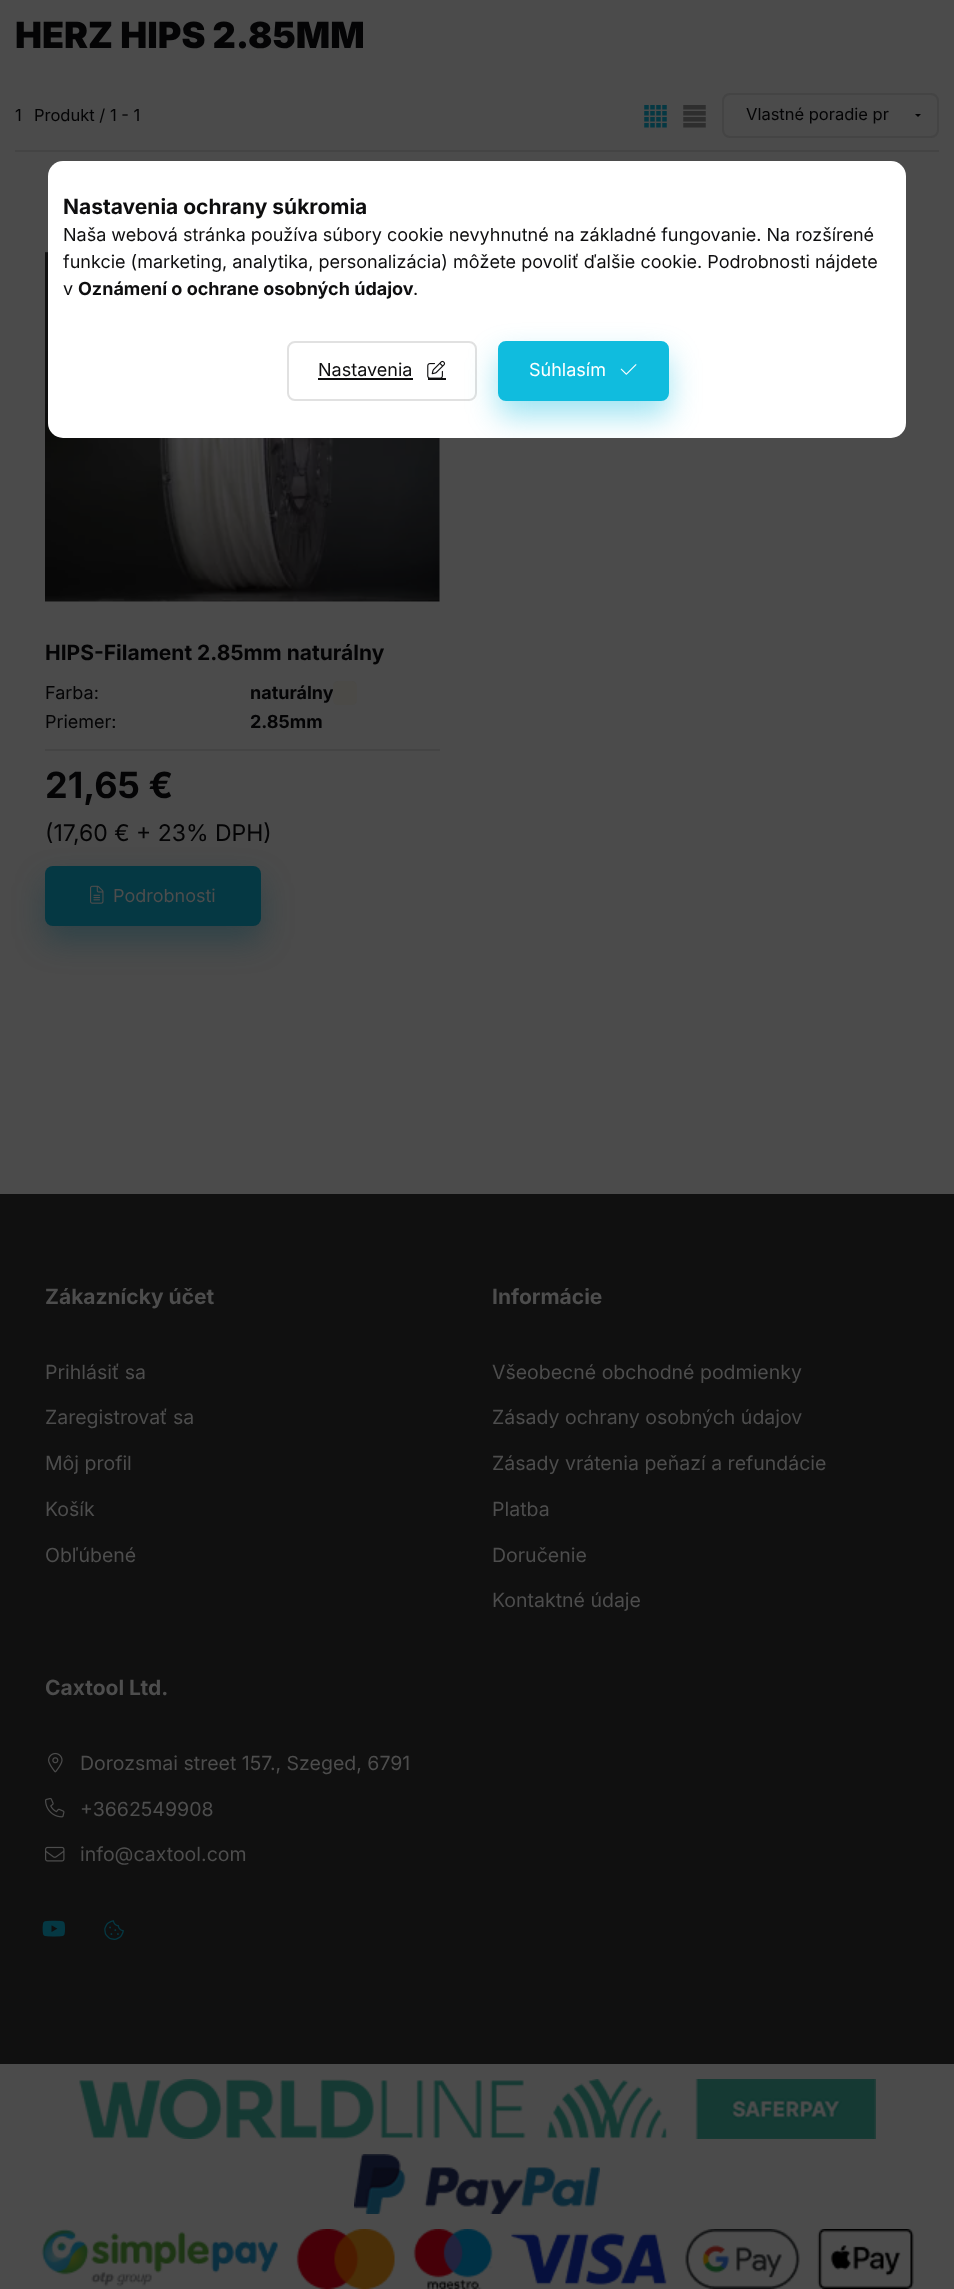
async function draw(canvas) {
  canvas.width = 954;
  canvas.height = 2289;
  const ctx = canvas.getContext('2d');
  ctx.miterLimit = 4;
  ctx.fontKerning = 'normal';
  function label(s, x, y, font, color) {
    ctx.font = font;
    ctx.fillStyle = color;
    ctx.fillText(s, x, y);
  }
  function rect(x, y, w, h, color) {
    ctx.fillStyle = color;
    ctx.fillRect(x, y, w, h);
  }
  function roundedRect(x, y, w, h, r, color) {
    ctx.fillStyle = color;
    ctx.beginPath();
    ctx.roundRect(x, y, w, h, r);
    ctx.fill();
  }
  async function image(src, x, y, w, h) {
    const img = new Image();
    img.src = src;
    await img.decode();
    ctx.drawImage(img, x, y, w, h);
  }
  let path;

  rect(0, 0, 954, 2289, '#4b4b4b');
  label('HERZ HIPS 2.85MM', 15, 48, '900 36px Inter', '#040405');
  rect(15, 150, 924, 2, '#444');
  label('1', 15, 121, '16.5px Inter', '#040405');
  label('Produkt / 1 - 1', 34, 121, '16.5px Inter', '#040405');
  await image('assets/img1.png', 644, 105, 23, 23);
  await image('assets/img2.png', 683, 105, 23, 23);
  ctx.beginPath();
  ctx.roundRect(723, 94, 215, 43, 7);
  ctx.strokeStyle = '#444';
  ctx.lineWidth = 2;
  ctx.stroke();
  label('Vlastné poradie pr', 746, 120, '16.5px Inter', '#040405');
  path = new Path2D('M915 114H921L918 117Z');
  ctx.fill(path);
  await image('assets/img3.png', 45, 251, 395, 351);
  label('HIPS-Filament 2.85mm naturálny', 45, 660, 'bold 21px Inter', '#040405');
  label('Farba:', 45, 699, '18px Inter', '#040405');
  ctx.save();
  ctx.beginPath();
  ctx.rect(251, 683, 82, 22);
  ctx.clip();
  label('naturálny', 250, 699, 'bold 18px Inter', '#040405');
  ctx.restore();
  roundedRect(333, 681, 24, 24, 5, '#4b4a47');
  label('Priemer:', 45, 728, '18px Inter', '#040405');
  label('2.85mm', 250, 728, 'bold 18px Inter', '#040405');
  rect(45, 749, 395, 2, '#444');
  label('21,65 €', 45, 798, 'bold 36px Inter', '#040405');
  ctx.fillStyle = '#05384366';
  ctx.filter = 'blur(15px)';
  ctx.beginPath();
  ctx.roundRect(45, 881, 216, 60, 8);
  ctx.fill();
  ctx.filter = 'none';
  label('(17,60 € + 23% DPH)', 45, 841, '23px Inter', '#040405');
  roundedRect(45, 866, 216, 60, 8, '#053843');
  await image('assets/img4.png', 90, 885, 14, 19);
  label('Podrobnosti', 113, 902, '18px Inter', '#4d4d4d');
  rect(0, 1194, 954, 870, '#101010');
  label('Zákaznícky účet', 45, 1304, 'bold 21px Inter', '#4d4d4d');
  label('Prihlásiť sa', 45, 1379, '19.5px Inter', '#4d4d4d');
  label('Zaregistrovať sa', 45, 1424, '19.5px Inter', '#4d4d4d');
  label('Môj profil', 45, 1470, '19.5px Inter', '#4d4d4d');
  label('Košík', 45, 1516, '19.5px Inter', '#4d4d4d');
  label('Obľúbené', 45, 1562, '19.5px Inter', '#4d4d4d');
  label('Informácie', 492, 1304, 'bold 21px Inter', '#4d4d4d');
  label('Všeobecné obchodné podmienky', 492, 1379, '19.5px Inter', '#4d4d4d');
  label('Zásady ochrany osobných údajov', 492, 1424, '19.5px Inter', '#4d4d4d');
  label('Zásady vrátenia peňazí a refundácie', 492, 1470, '19.5px Inter', '#4d4d4d');
  label('Platba', 492, 1516, '19.5px Inter', '#4d4d4d');
  label('Doručenie', 492, 1562, '19.5px Inter', '#4d4d4d');
  label('Kontaktné údaje', 492, 1607, '19.5px Inter', '#4d4d4d');
  label('Caxtool Ltd.', 45, 1695, 'bold 21px Inter', '#4d4d4d');
  await image('assets/img5.png', 48, 1752, 15, 21);
  label('Dorozsmai street 157., Szeged, 6791', 80, 1770, '19.5px Inter', '#4d4d4d');
  await image('assets/img6.png', 45, 1797, 20, 21);
  label('+3662549908', 80, 1816, '19.5px Inter', '#4d4d4d');
  await image('assets/img7.png', 45, 1846, 20, 16);
  label('info@caxtool.com', 80, 1861, '19.5px Inter', '#4d4d4d');
  await image('assets/img8.png', 42, 1920, 23, 17);
  await image('assets/img9.png', 104, 1920, 20, 20);
  await image('assets/img10.png', 79, 2079, 797, 60);
  await image('assets/img11.png', 354, 2154, 246, 60);
  await image('assets/img12.png', 41, 2229, 873, 60);
  roundedRect(48, 161, 858, 277, 15, '#fff');
  label('Nastavenia ochrany súkromia', 63, 214, 'bold 21px Inter', '#0e0e0f');
  label('Naša webová stránka používa súbory cookie nevyhnutné na základné fungovanie. Na rozšírené', 63, 241, '18px Inter', '#0e0e0f');
  label('funkcie (marketing, analytika, personalizácia) môžete povoliť ďalšie cookie. Podrobnosti nájdete', 63, 268, '18px Inter', '#0e0e0f');
  label('v', 63, 295, '18px Inter', '#0e0e0f');
  label('Oznámení o ochrane osobných údajov', 78, 295, 'bold 18px Inter', '#0e0e0f');
  label('.', 413, 295, '18px Inter', '#0e0e0f');
  ctx.beginPath();
  ctx.roundRect(288, 342, 188, 58, 7);
  ctx.strokeStyle = '#e1e1e1';
  ctx.stroke();
  label('Nastavenia', 318, 376, '18px Inter', '#0e0e0f');
  rect(318, 378, 95, 2, '#0e0e0f');
  await image('assets/img13.png', 427, 360, 19, 18);
  rect(428, 378, 18, 2, '#0e0e0f');
  ctx.save();
  ctx.beginPath();
  ctx.roundRect(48, 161, 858, 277, 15);
  ctx.clip();
  ctx.fillStyle = '#10bcde66';
  ctx.filter = 'blur(15px)';
  ctx.beginPath();
  ctx.roundRect(498, 356, 171, 60, 8);
  ctx.fill();
  ctx.filter = 'none';
  ctx.restore();
  ctx.fillStyle = '#10bcde';
  ctx.beginPath();
  ctx.roundRect(499, 342, 169, 58, 7);
  ctx.fill();
  ctx.strokeStyle = '#10bcde';
  ctx.stroke();
  label('Súhlasím', 529, 376, '18px Inter', '#fff');
  await image('assets/img14.png', 620, 364, 17, 11);
}

draw(document.querySelector('canvas'));
